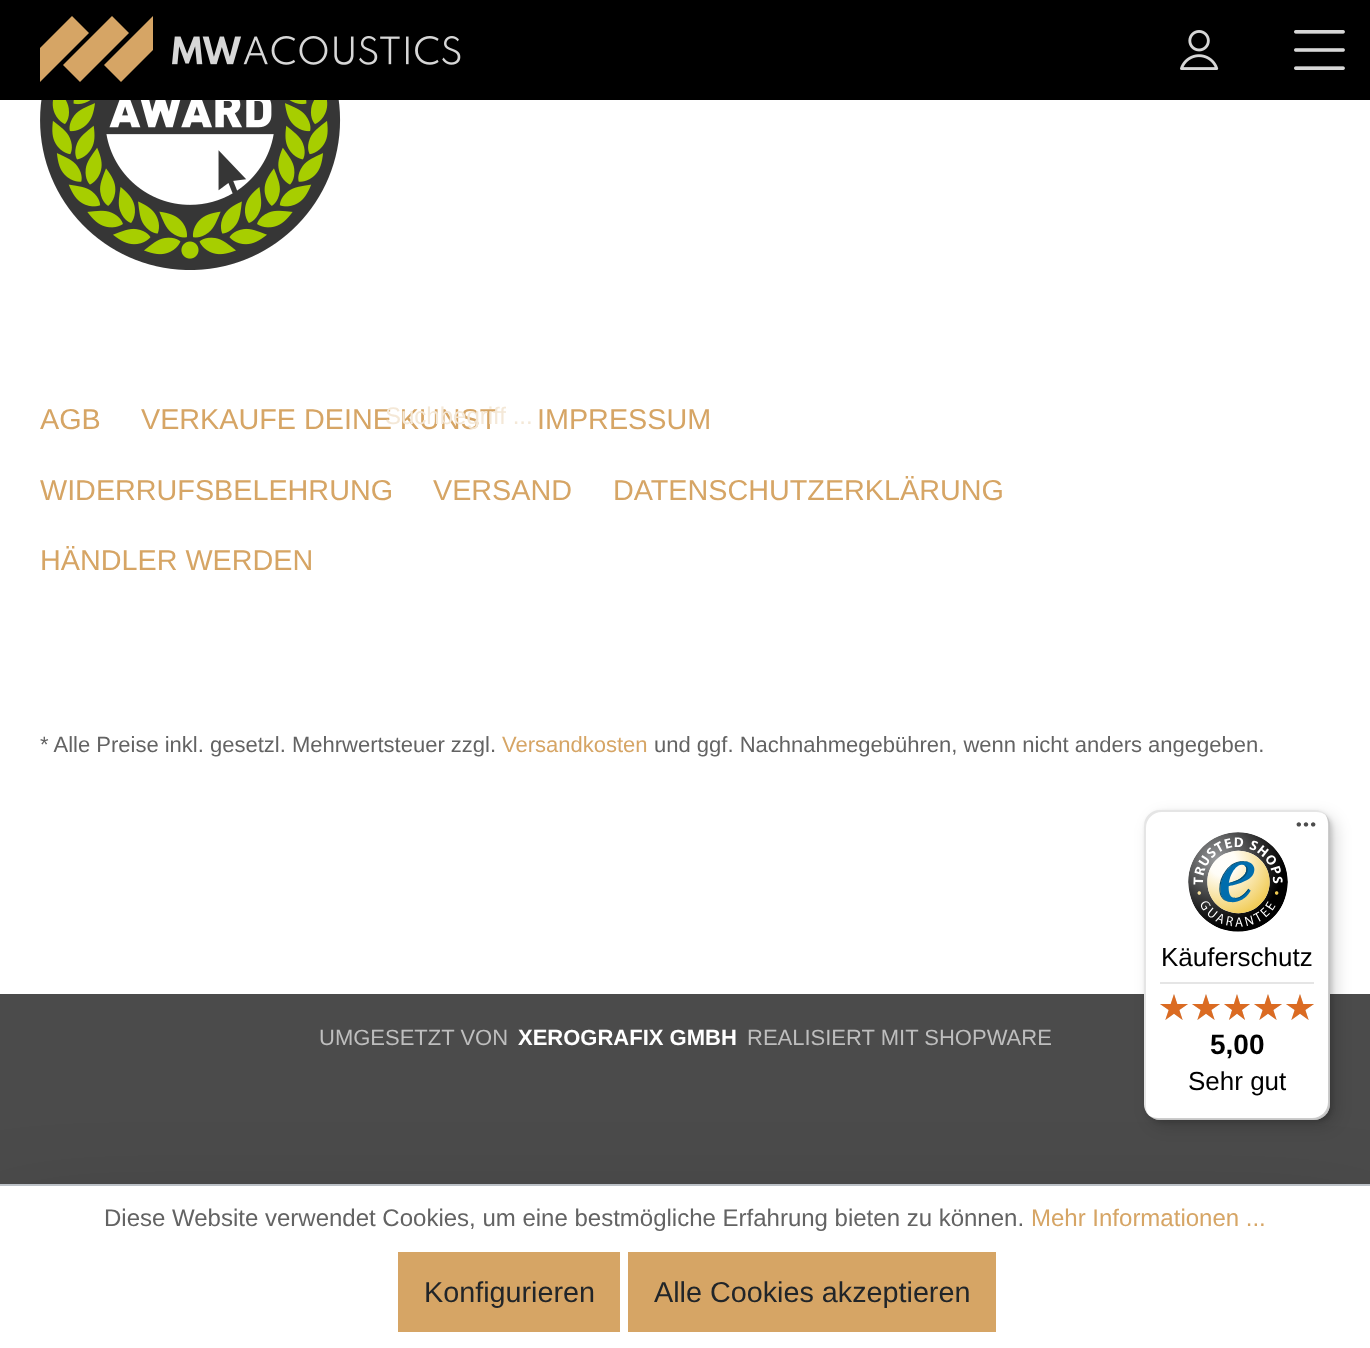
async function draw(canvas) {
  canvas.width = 1370;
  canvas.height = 1348;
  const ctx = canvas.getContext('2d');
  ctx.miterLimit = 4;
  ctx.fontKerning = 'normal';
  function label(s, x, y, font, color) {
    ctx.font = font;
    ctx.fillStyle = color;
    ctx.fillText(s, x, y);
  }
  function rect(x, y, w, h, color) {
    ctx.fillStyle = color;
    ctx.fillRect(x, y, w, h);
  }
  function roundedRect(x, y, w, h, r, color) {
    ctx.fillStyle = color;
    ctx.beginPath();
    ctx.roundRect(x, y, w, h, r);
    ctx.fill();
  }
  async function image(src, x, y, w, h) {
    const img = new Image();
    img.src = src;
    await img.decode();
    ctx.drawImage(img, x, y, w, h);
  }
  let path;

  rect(0, 0, 1370, 1348, '#fff');
  rect(0, 0, 1370, 100, '#000');
  ctx.fillStyle = '#d6a565';
  path = new Path2D('M72 16L40 48V82L89 33Z');
  ctx.fill(path);
  path = new Path2D('M63 65L112 16L129 33L80 82Z');
  ctx.fill(path);
  path = new Path2D('M104 65L121 82L153 50V16Z');
  ctx.fill(path);
  await image('assets/img1.png', 172, 36, 289, 29);
  await image('assets/img2.png', 1180, 30, 39, 40);
  await image('assets/img3.png', 1294, 30, 51, 40);
  rect(0, 994, 1370, 190, '#4b4b4b');
  ctx.fillStyle = '#0000008f';
  ctx.filter = 'blur(70px)';
  ctx.beginPath();
  ctx.rect(-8, 1284, 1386, 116);
  ctx.fill();
  ctx.filter = 'none';
  label('VERKAUFE DEINE KUNST', 141, 429, '28.75px Liberation Sans', '#d6a565');
  label('Suchbegriff ...', 385, 424, '24px Liberation Sans', '#f4e8d7');
  await image('assets/img4.png', 40, 100, 301, 170);
  label('AGB', 40, 429, '28.75px Liberation Sans', '#d6a565');
  label('IMPRESSUM', 537, 429, '28.75px Liberation Sans', '#d6a565');
  label('WIDERRUFSBELEHRUNG', 40, 500, '28.75px Liberation Sans', '#d6a565');
  label('VERSAND', 433, 500, '28.75px Liberation Sans', '#d6a565');
  label('DATENSCHUTZERKLÄRUNG', 613, 500, '28.75px Liberation Sans', '#d6a565');
  label('HÄNDLER WERDEN', 40, 570, '28.75px Liberation Sans', '#d6a565');
  label('* Alle Preise inkl. gesetzl. Mehrwertsteuer zzgl.', 40, 752, '22px Liberation Sans', '#636363');
  label('Versandkosten', 502, 752, '22px Liberation Sans', '#d6a565');
  label('und ggf. Nachnahmegebühren, wenn nicht anders angegeben.', 654, 752, '22px Liberation Sans', '#636363');
  label('UMGESETZT VON', 319, 1045, '22px Liberation Sans', '#bebebe');
  label('XEROGRAFIX GMBH', 518, 1045, 'bold 22px Liberation Sans', '#fff');
  label('REALISIERT MIT SHOPWARE', 747, 1045, '22px Liberation Sans', '#bebebe');
  ctx.fillStyle = '#00000026';
  ctx.filter = 'blur(8px)';
  ctx.beginPath();
  ctx.roundRect(1150, 816, 186, 310, 16);
  ctx.fill();
  ctx.filter = 'none';
  ctx.filter = 'blur(2px)';
  ctx.beginPath();
  ctx.roundRect(1146, 812, 186, 310, 16);
  ctx.fill();
  ctx.filter = 'none';
  roundedRect(1144, 810, 186, 310, 16, '#fff');
  ctx.fillStyle = '#0000001a';
  path = new Path2D('M1162 812H1316C1320 812 1323 813 1326 815C1323 812 1319 810 1314 810H1160C1151 810 1144 817 1144 826V1104C1144 1109 1146 1113 1149 1116C1147 1113 1146 1110 1146 1106V828C1146 819 1153 812 1162 812Z');
  ctx.fill(path);
  ctx.fillStyle = '#00000033';
  path = new Path2D('M1148 1115C1151 1118 1155 1120 1160 1120H1314C1323 1120 1330 1113 1330 1104V826C1330 821 1328 817 1325 814C1327 817 1328 820 1328 824V1102C1328 1111 1321 1118 1312 1118H1158C1154 1118 1151 1117 1148 1115Z');
  ctx.fill(path);
  ctx.fillStyle = '#32323233';
  path = new Path2D('M1149 1115C1152 1118 1156 1120 1160 1120H1314C1323 1120 1330 1113 1330 1104V826C1330 822 1328 818 1325 815C1328 818 1329 821 1329 825V1103C1329 1112 1322 1119 1313 1119H1159C1155 1119 1152 1118 1149 1115Z');
  ctx.fill(path);
  ctx.fillStyle = '#ffffff4d';
  path = new Path2D('M1149 1115C1152 1118 1156 1120 1160 1120H1314C1323 1120 1330 1113 1330 1104V826C1330 822 1328 818 1325 815C1328 818 1329 821 1329 825V1103C1329 1112 1322 1119 1313 1119H1159C1155 1119 1152 1118 1149 1115Z');
  ctx.fill(path);
  await image('assets/img5.png', 1296, 822, 20, 5);
  await image('assets/img6.png', 1188, 832, 100, 100);
  label('Käuferschutz', 1161, 966, '26px Liberation Sans', '#000');
  rect(1160, 982, 154, 2, '#e5e5e5');
  await image('assets/img7.png', 1160, 994, 28, 26);
  await image('assets/img7.png', 1192, 994, 28, 26);
  await image('assets/img8.png', 1224, 994, 26, 26);
  await image('assets/img7.png', 1254, 994, 28, 26);
  await image('assets/img7.png', 1286, 994, 28, 26);
  await image('assets/img9.png', 1160, 994, 28, 26);
  await image('assets/img9.png', 1192, 994, 28, 26);
  await image('assets/img10.png', 1224, 994, 26, 26);
  await image('assets/img9.png', 1254, 994, 28, 26);
  await image('assets/img9.png', 1286, 994, 28, 26);
  label('5,00', 1210, 1054, 'bold 28px Liberation Sans', '#000');
  label('Sehr gut', 1188, 1090, '26px Liberation Sans', '#000');
  rect(0, 1186, 1370, 162, '#fff');
  rect(0, 1184, 1370, 2, '#bcc1c7');
  label('Diese Website verwendet Cookies, um eine bestmögliche Erfahrung bieten zu können.', 104, 1226, '24px Liberation Sans', '#636363');
  label('Mehr Informationen ...', 1031, 1226, '24px Liberation Sans', '#d6a565');
  rect(398, 1252, 222, 80, '#d6a565');
  label('Konfigurieren', 424, 1302, '28.75px Liberation Sans', '#212529');
  rect(628, 1252, 368, 80, '#d6a565');
  label('Alle Cookies akzeptieren', 654, 1302, '28.75px Liberation Sans', '#212529');
}

draw(document.querySelector('canvas'));
